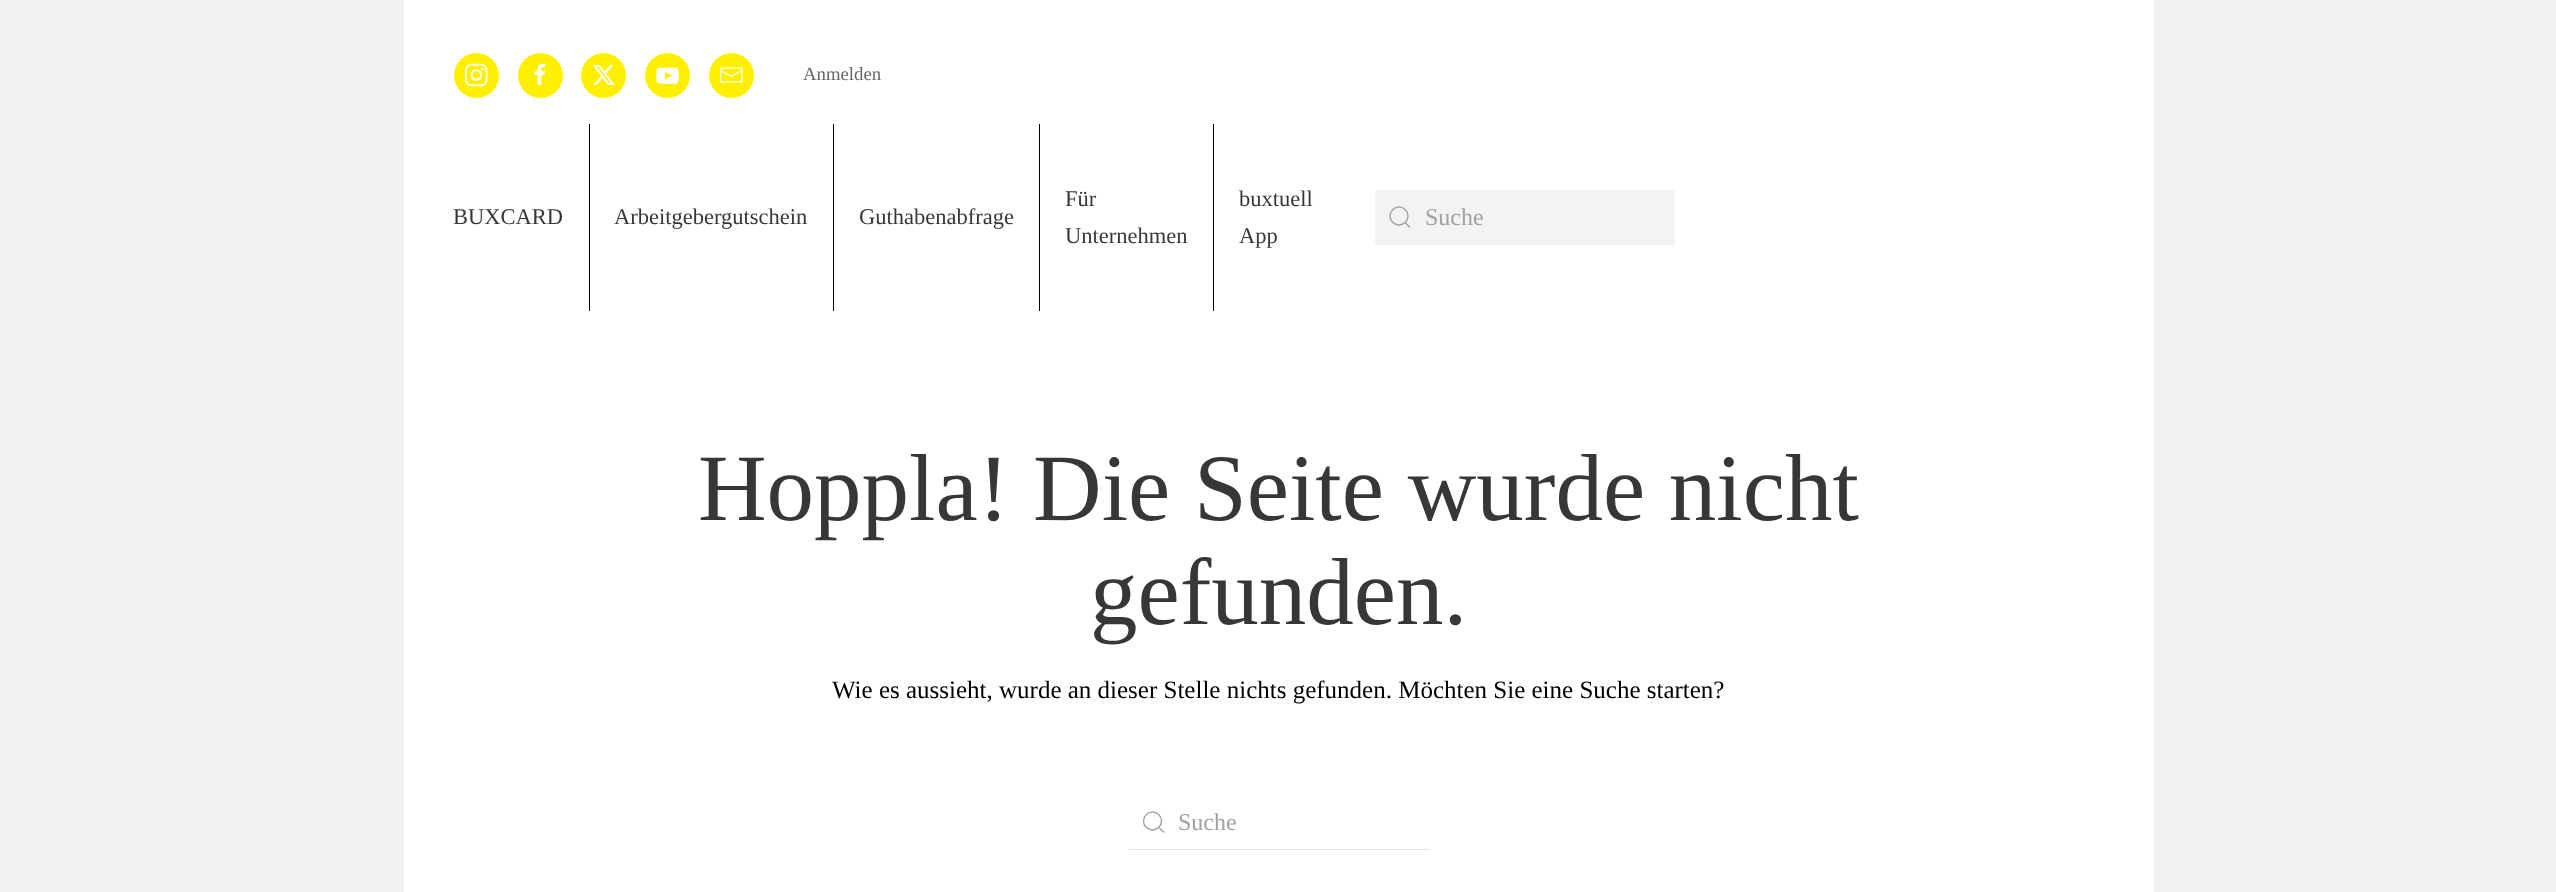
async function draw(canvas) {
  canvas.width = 2556;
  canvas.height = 892;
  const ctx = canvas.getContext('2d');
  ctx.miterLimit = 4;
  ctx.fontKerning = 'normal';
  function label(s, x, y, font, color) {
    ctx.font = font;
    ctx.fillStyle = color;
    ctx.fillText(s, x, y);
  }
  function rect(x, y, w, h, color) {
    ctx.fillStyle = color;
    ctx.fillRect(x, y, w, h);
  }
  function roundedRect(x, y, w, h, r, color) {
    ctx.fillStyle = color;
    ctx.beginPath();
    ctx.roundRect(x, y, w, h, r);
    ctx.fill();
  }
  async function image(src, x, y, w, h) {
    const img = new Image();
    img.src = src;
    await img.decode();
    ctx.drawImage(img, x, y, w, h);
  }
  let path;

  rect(0, 0, 2556, 892, '#f2f2f2');
  rect(404, 0, 1750, 892, '#fff');
  ctx.fillStyle = '#ffef00';
  ctx.beginPath();
  ctx.arc(476.5, 75.5, 22.5, 0, 2 * Math.PI);
  ctx.fill();
  await image('assets/img1.png', 465, 63, 23, 24);
  ctx.beginPath();
  ctx.arc(540.5, 75.5, 22.5, 0, 2 * Math.PI);
  ctx.fill();
  await image('assets/img2.png', 534, 63, 11, 22);
  ctx.beginPath();
  ctx.arc(603.5, 75.5, 22.5, 0, 2 * Math.PI);
  ctx.fill();
  await image('assets/img3.png', 592, 65, 23, 20);
  ctx.beginPath();
  ctx.arc(667.5, 75.5, 22.5, 0, 2 * Math.PI);
  ctx.fill();
  await image('assets/img4.png', 656, 67, 23, 17);
  ctx.beginPath();
  ctx.arc(731.5, 75.5, 22.5, 0, 2 * Math.PI);
  ctx.fill();
  await image('assets/img5.png', 720, 67, 23, 16);
  label('Anmelden', 803, 80, '18.75px Liberation Serif', '#666');
  rect(589, 124, 1, 187, '#000');
  label('BUXCARD', 453, 224, '22.5px Liberation Serif', '#373737');
  rect(833, 124, 1, 187, '#000');
  label('Arbeitgebergutschein', 614, 224, '22.5px Liberation Serif', '#373737');
  rect(1039, 124, 1, 187, '#000');
  label('Guthabenabfrage', 859, 224, '22.5px Liberation Serif', '#373737');
  rect(1213, 124, 1, 187, '#000');
  label('Für', 1065, 206, '22.5px Liberation Serif', '#373737');
  label('Unternehmen', 1065, 243, '22.5px Liberation Serif', '#373737');
  label('buxtuell', 1239, 206, '22.5px Liberation Serif', '#373737');
  label('App', 1239, 243, '22.5px Liberation Serif', '#373737');
  roundedRect(1375, 190, 300, 55, 2.5, '#f3f3f3');
  ctx.beginPath();
  ctx.arc(1399, 216, 9, 0, 2 * Math.PI);
  ctx.strokeStyle = '#a1a1a1';
  ctx.lineWidth = 1.4;
  ctx.stroke();
  path = new Path2D('M1405 222.5L1410 227.5Z');
  ctx.stroke(path);
  label('Suche', 1425, 225, '24px Liberation Serif', '#a1a1a1');
  label('Hoppla! Die Seite wurde nicht', 698, 520, '95px Liberation Serif', '#373737');
  label('gefunden.', 1090, 624, '95px Liberation Serif', '#373737');
  label('Wie es aussieht, wurde an dieser Stelle nichts gefunden. Möchten Sie eine Suche starten?', 832, 698, '25px Liberation Serif', '#000');
  ctx.beginPath();
  ctx.arc(1152.5, 821, 9, 0, 2 * Math.PI);
  ctx.stroke();
  path = new Path2D('M1159 827.5L1164 832.5Z');
  ctx.stroke(path);
  rect(1129, 849, 300, 1, '#e2e2e2');
  label('Suche', 1178, 830, '24px Liberation Serif', '#a1a1a1');
}

draw(document.querySelector('canvas'));
